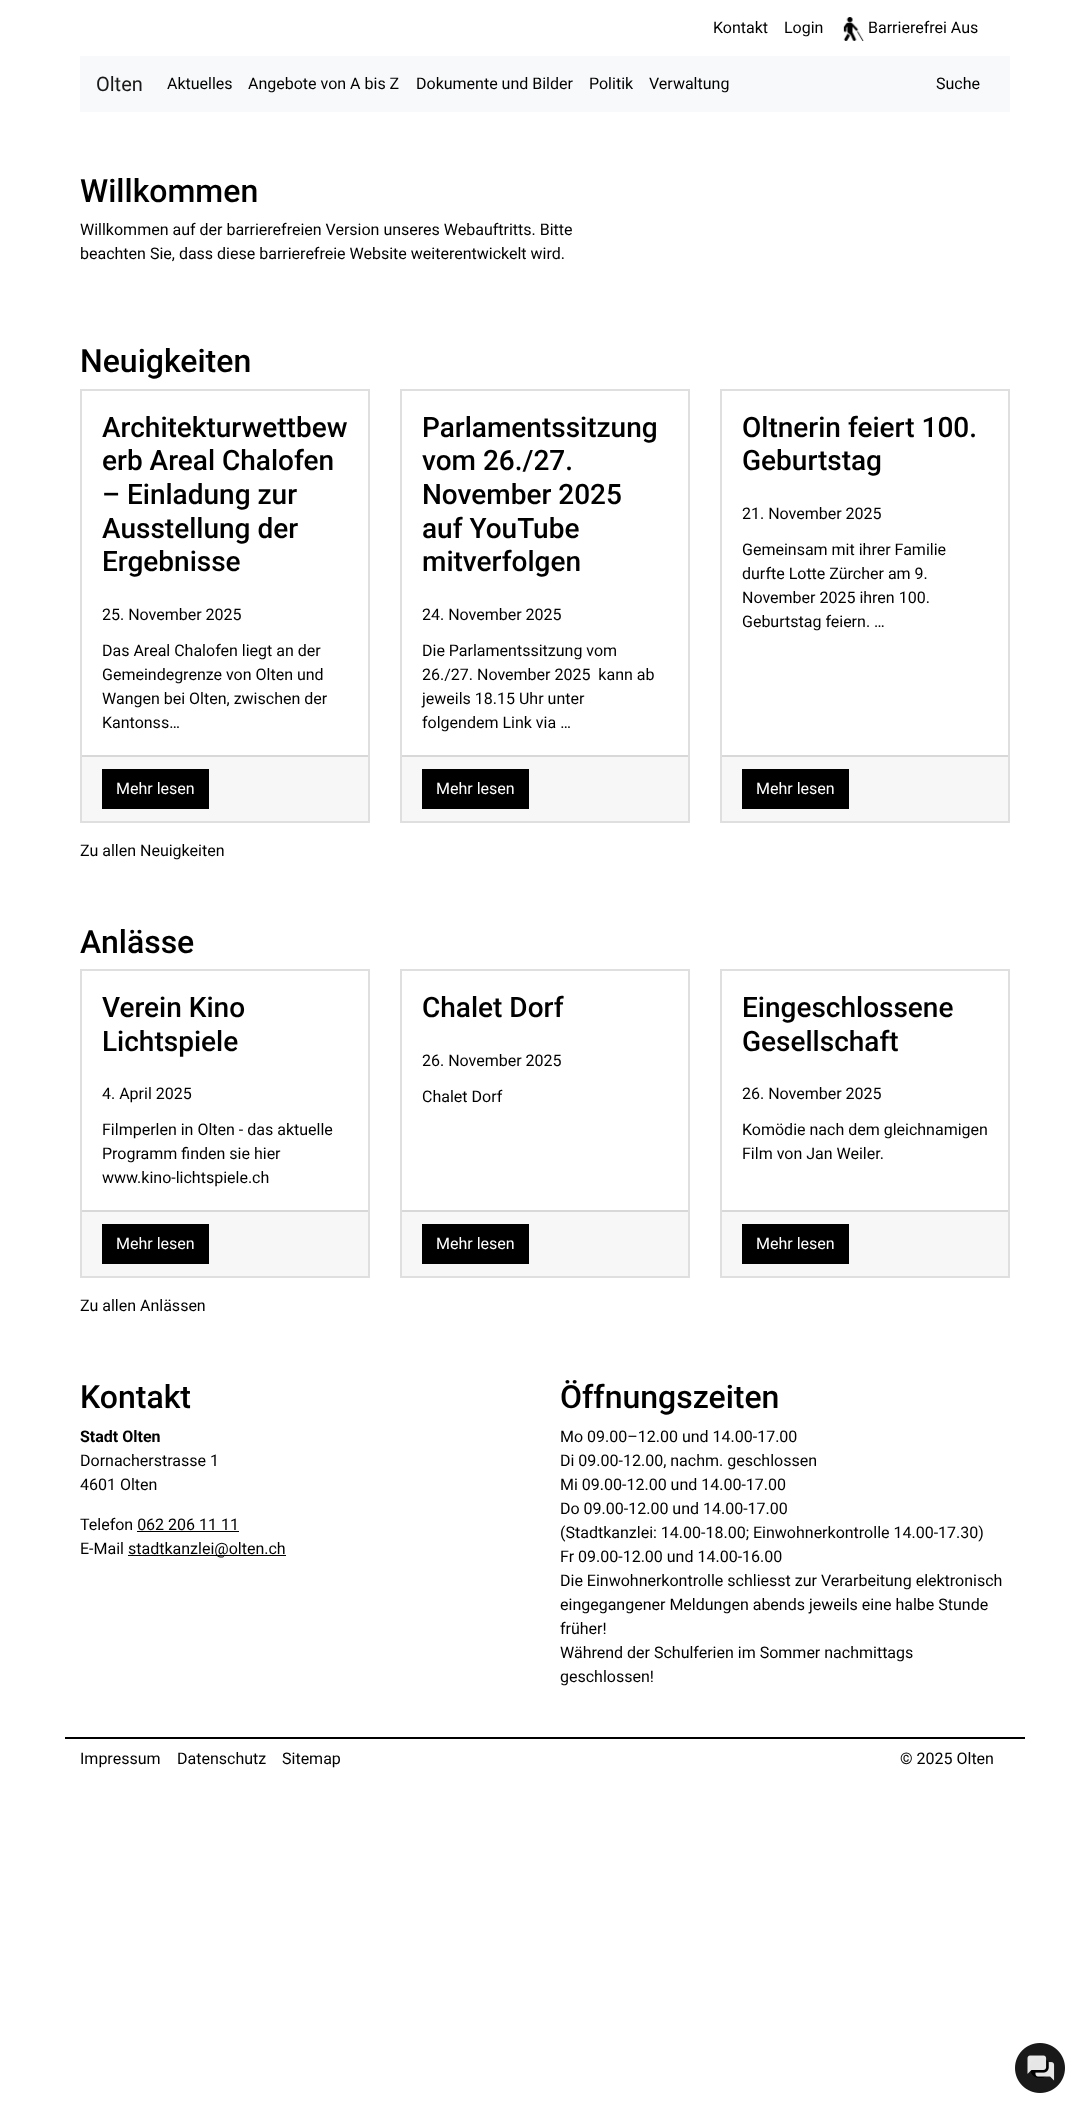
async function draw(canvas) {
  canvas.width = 1090;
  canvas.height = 2118;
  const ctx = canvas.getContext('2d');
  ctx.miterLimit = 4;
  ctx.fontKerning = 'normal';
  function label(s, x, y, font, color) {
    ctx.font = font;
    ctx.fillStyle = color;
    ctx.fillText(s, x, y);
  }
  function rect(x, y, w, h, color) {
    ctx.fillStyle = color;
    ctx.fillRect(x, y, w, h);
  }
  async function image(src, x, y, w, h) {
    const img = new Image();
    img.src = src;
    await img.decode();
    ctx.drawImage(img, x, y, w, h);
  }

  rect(0, 0, 1090, 2118, '#fff');
  label('Kontakt', 713, 33, '16px Roboto', '#000');
  label('Login', 784, 33, '16px Roboto', '#000');
  await image('assets/img1.png', 843, 17, 21, 24);
  label('Barrierefrei Aus', 868, 33, '16px Roboto', '#000');
  rect(80, 56, 930, 56, '#f8f9fa');
  label('Olten', 96, 91, '20px Roboto', '#191919');
  label('Aktuelles', 167, 89, '16px Roboto', '#000');
  label('Angebote von A bis Z', 248, 89, '16px Roboto', '#000');
  label('Dokumente und Bilder', 416, 89, '16px Roboto', '#000');
  label('Politik', 589, 89, '16px Roboto', '#000');
  label('Verwaltung', 649, 89, '16px Roboto', '#000');
  label('Suche', 936, 89, '16px Roboto', '#000');
  label('Willkommen', 80, 202, '500 32px Roboto', '#000');
  label('Willkommen auf der barrierefreien Version unseres Webauftritts. Bitte', 80, 235, '16px Roboto', '#000');
  label('beachten Sie, dass diese barrierefreie Website weiterentwickelt wird.', 80, 259, '16px Roboto', '#000');
  label('Neuigkeiten', 80, 372, '500 32px Roboto', '#000');
  ctx.strokeStyle = '#dfdfdf';
  ctx.lineWidth = 2;
  ctx.strokeRect(81, 390, 288, 432);
  label('Architekturwettbew', 102, 437, '500 28px Roboto', '#000');
  label('erb Areal Chalofen', 102, 470, '500 28px Roboto', '#000');
  label('– Einladung zur', 102, 504, '500 28px Roboto', '#000');
  label('Ausstellung der', 102, 538, '500 28px Roboto', '#000');
  label('Ergebnisse', 102, 571, '500 28px Roboto', '#000');
  label('25. November 2025', 102, 620, '16px Roboto', '#000');
  label('Das Areal Chalofen liegt an der', 102, 656, '16px Roboto', '#000');
  label('Gemeindegrenze von Olten und', 102, 680, '16px Roboto', '#000');
  label('Wangen bei Olten, zwischen der', 102, 704, '16px Roboto', '#000');
  label('Kantonss…', 102, 728, '16px Roboto', '#000');
  rect(82, 757, 286, 64, '#f7f7f7');
  rect(82, 755, 286, 2, '#d8d8d8');
  rect(102, 769, 107, 40, '#000');
  label('Mehr lesen', 116, 794, '16px Roboto', '#fff');
  ctx.strokeRect(401, 390, 288, 432);
  label('Parlamentssitzung', 422, 437, '500 28px Roboto', '#000');
  label('vom 26./27.', 422, 470, '500 28px Roboto', '#000');
  label('November 2025', 422, 504, '500 28px Roboto', '#000');
  label('auf YouTube', 422, 538, '500 28px Roboto', '#000');
  label('mitverfolgen', 422, 571, '500 28px Roboto', '#000');
  label('24. November 2025', 422, 620, '16px Roboto', '#000');
  label('Die Parlamentssitzung vom', 422, 656, '16px Roboto', '#000');
  label('26./27. November 2025  kann ab', 422, 680, '16px Roboto', '#000');
  label('jeweils 18.15 Uhr unter', 422, 704, '16px Roboto', '#000');
  label('folgendem Link via …', 422, 728, '16px Roboto', '#000');
  rect(402, 757, 286, 64, '#f7f7f7');
  rect(402, 755, 286, 2, '#d8d8d8');
  rect(422, 769, 107, 40, '#000');
  label('Mehr lesen', 436, 794, '16px Roboto', '#fff');
  ctx.strokeRect(721, 390, 288, 432);
  label('Oltnerin feiert 100.', 742, 437, '500 28px Roboto', '#000');
  label('Geburtstag', 742, 470, '500 28px Roboto', '#000');
  label('21. November 2025', 742, 519, '16px Roboto', '#000');
  label('Gemeinsam mit ihrer Familie', 742, 555, '16px Roboto', '#000');
  label('durfte Lotte Zürcher am 9.', 742, 579, '16px Roboto', '#000');
  label('November 2025 ihren 100.', 742, 603, '16px Roboto', '#000');
  label('Geburtstag feiern. …', 742, 627, '16px Roboto', '#000');
  rect(722, 757, 286, 64, '#f7f7f7');
  rect(722, 755, 286, 2, '#d8d8d8');
  rect(742, 769, 107, 40, '#000');
  label('Mehr lesen', 756, 794, '16px Roboto', '#fff');
  label('Zu allen Neuigkeiten', 80, 856, '16px Roboto', '#000');
  label('Anlässe', 80, 953, '500 32px Roboto', '#000');
  ctx.strokeRect(81, 970, 288, 307);
  label('Verein Kino', 102, 1017, '500 28px Roboto', '#000');
  label('Lichtspiele', 102, 1051, '500 28px Roboto', '#000');
  label('4. April 2025', 102, 1099, '16px Roboto', '#000');
  label('Filmperlen in Olten - das aktuelle', 102, 1135, '16px Roboto', '#000');
  label('Programm finden sie hier', 102, 1159, '16px Roboto', '#000');
  label('www.kino-lichtspiele.ch', 102, 1183, '16px Roboto', '#000');
  rect(82, 1212, 286, 64, '#f7f7f7');
  rect(82, 1210, 286, 2, '#d8d8d8');
  rect(102, 1224, 107, 40, '#000');
  label('Mehr lesen', 116, 1249, '16px Roboto', '#fff');
  ctx.strokeRect(401, 970, 288, 307);
  label('Chalet Dorf', 422, 1017, '500 28px Roboto', '#000');
  label('26. November 2025', 422, 1066, '16px Roboto', '#000');
  label('Chalet Dorf', 422, 1102, '16px Roboto', '#000');
  rect(402, 1212, 286, 64, '#f7f7f7');
  rect(402, 1210, 286, 2, '#d8d8d8');
  rect(422, 1224, 107, 40, '#000');
  label('Mehr lesen', 436, 1249, '16px Roboto', '#fff');
  ctx.strokeRect(721, 970, 288, 307);
  label('Eingeschlossene', 742, 1017, '500 28px Roboto', '#000');
  label('Gesellschaft', 742, 1051, '500 28px Roboto', '#000');
  label('26. November 2025', 742, 1099, '16px Roboto', '#000');
  label('Komödie nach dem gleichnamigen', 742, 1135, '16px Roboto', '#000');
  label('Film von Jan Weiler.', 742, 1159, '16px Roboto', '#000');
  rect(722, 1212, 286, 64, '#f7f7f7');
  rect(722, 1210, 286, 2, '#d8d8d8');
  rect(742, 1224, 107, 40, '#000');
  label('Mehr lesen', 756, 1249, '16px Roboto', '#fff');
  label('Zu allen Anlässen', 80, 1311, '16px Roboto', '#000');
  label('Kontakt', 80, 1408, '500 32px Roboto', '#000');
  label('Stadt Olten', 80, 1442, 'bold 16px Roboto', '#000');
  label('Dornacherstrasse 1', 80, 1466, '16px Roboto', '#000');
  label('4601 Olten', 80, 1490, '16px Roboto', '#000');
  label('Telefon 062 206 11 11', 80, 1530, '16px Roboto', '#000');
  rect(137, 1531, 102, 1, '#000');
  label('E-Mail', 80, 1554, '16px Roboto', '#000');
  rect(128, 1555, 158, 1, '#000');
  label('stadtkanzlei@olten.ch', 128, 1554, '16px Roboto', '#000');
  label('Öffnungszeiten', 560, 1408, '500 32px Roboto', '#000');
  label('Mo 09.00–12.00 und 14.00-17.00', 560, 1442, '16px Roboto', '#000');
  label('Di 09.00-12.00, nachm. geschlossen', 560, 1466, '16px Roboto', '#000');
  label('Mi 09.00-12.00 und 14.00-17.00', 560, 1490, '16px Roboto', '#000');
  label('Do 09.00-12.00 und 14.00-17.00', 560, 1514, '16px Roboto', '#000');
  label('(Stadtkanzlei: 14.00-18.00; Einwohnerkontrolle 14.00-17.30)', 560, 1538, '16px Roboto', '#000');
  label('Fr 09.00-12.00 und 14.00-16.00', 560, 1562, '16px Roboto', '#000');
  label('Die Einwohnerkontrolle schliesst zur Verarbeitung elektronisch', 560, 1586, '16px Roboto', '#000');
  label('eingegangener Meldungen abends jeweils eine halbe Stunde', 560, 1610, '16px Roboto', '#000');
  label('früher!', 560, 1634, '16px Roboto', '#000');
  label('Während der Schulferien im Sommer nachmittags', 560, 1658, '16px Roboto', '#000');
  label('geschlossen!', 560, 1682, '16px Roboto', '#000');
  rect(65, 1737, 960, 2, '#000');
  label('Impressum', 80, 1764, '16px Roboto', '#000');
  label('Datenschutz', 177, 1764, '16px Roboto', '#000');
  label('Sitemap', 282, 1764, '16px Roboto', '#000');
  label('© 2025 Olten', 900, 1764, '16px Roboto', '#000');
  await image('assets/img2.png', 1015, 2043, 50, 50);
}

draw(document.querySelector('canvas'));
